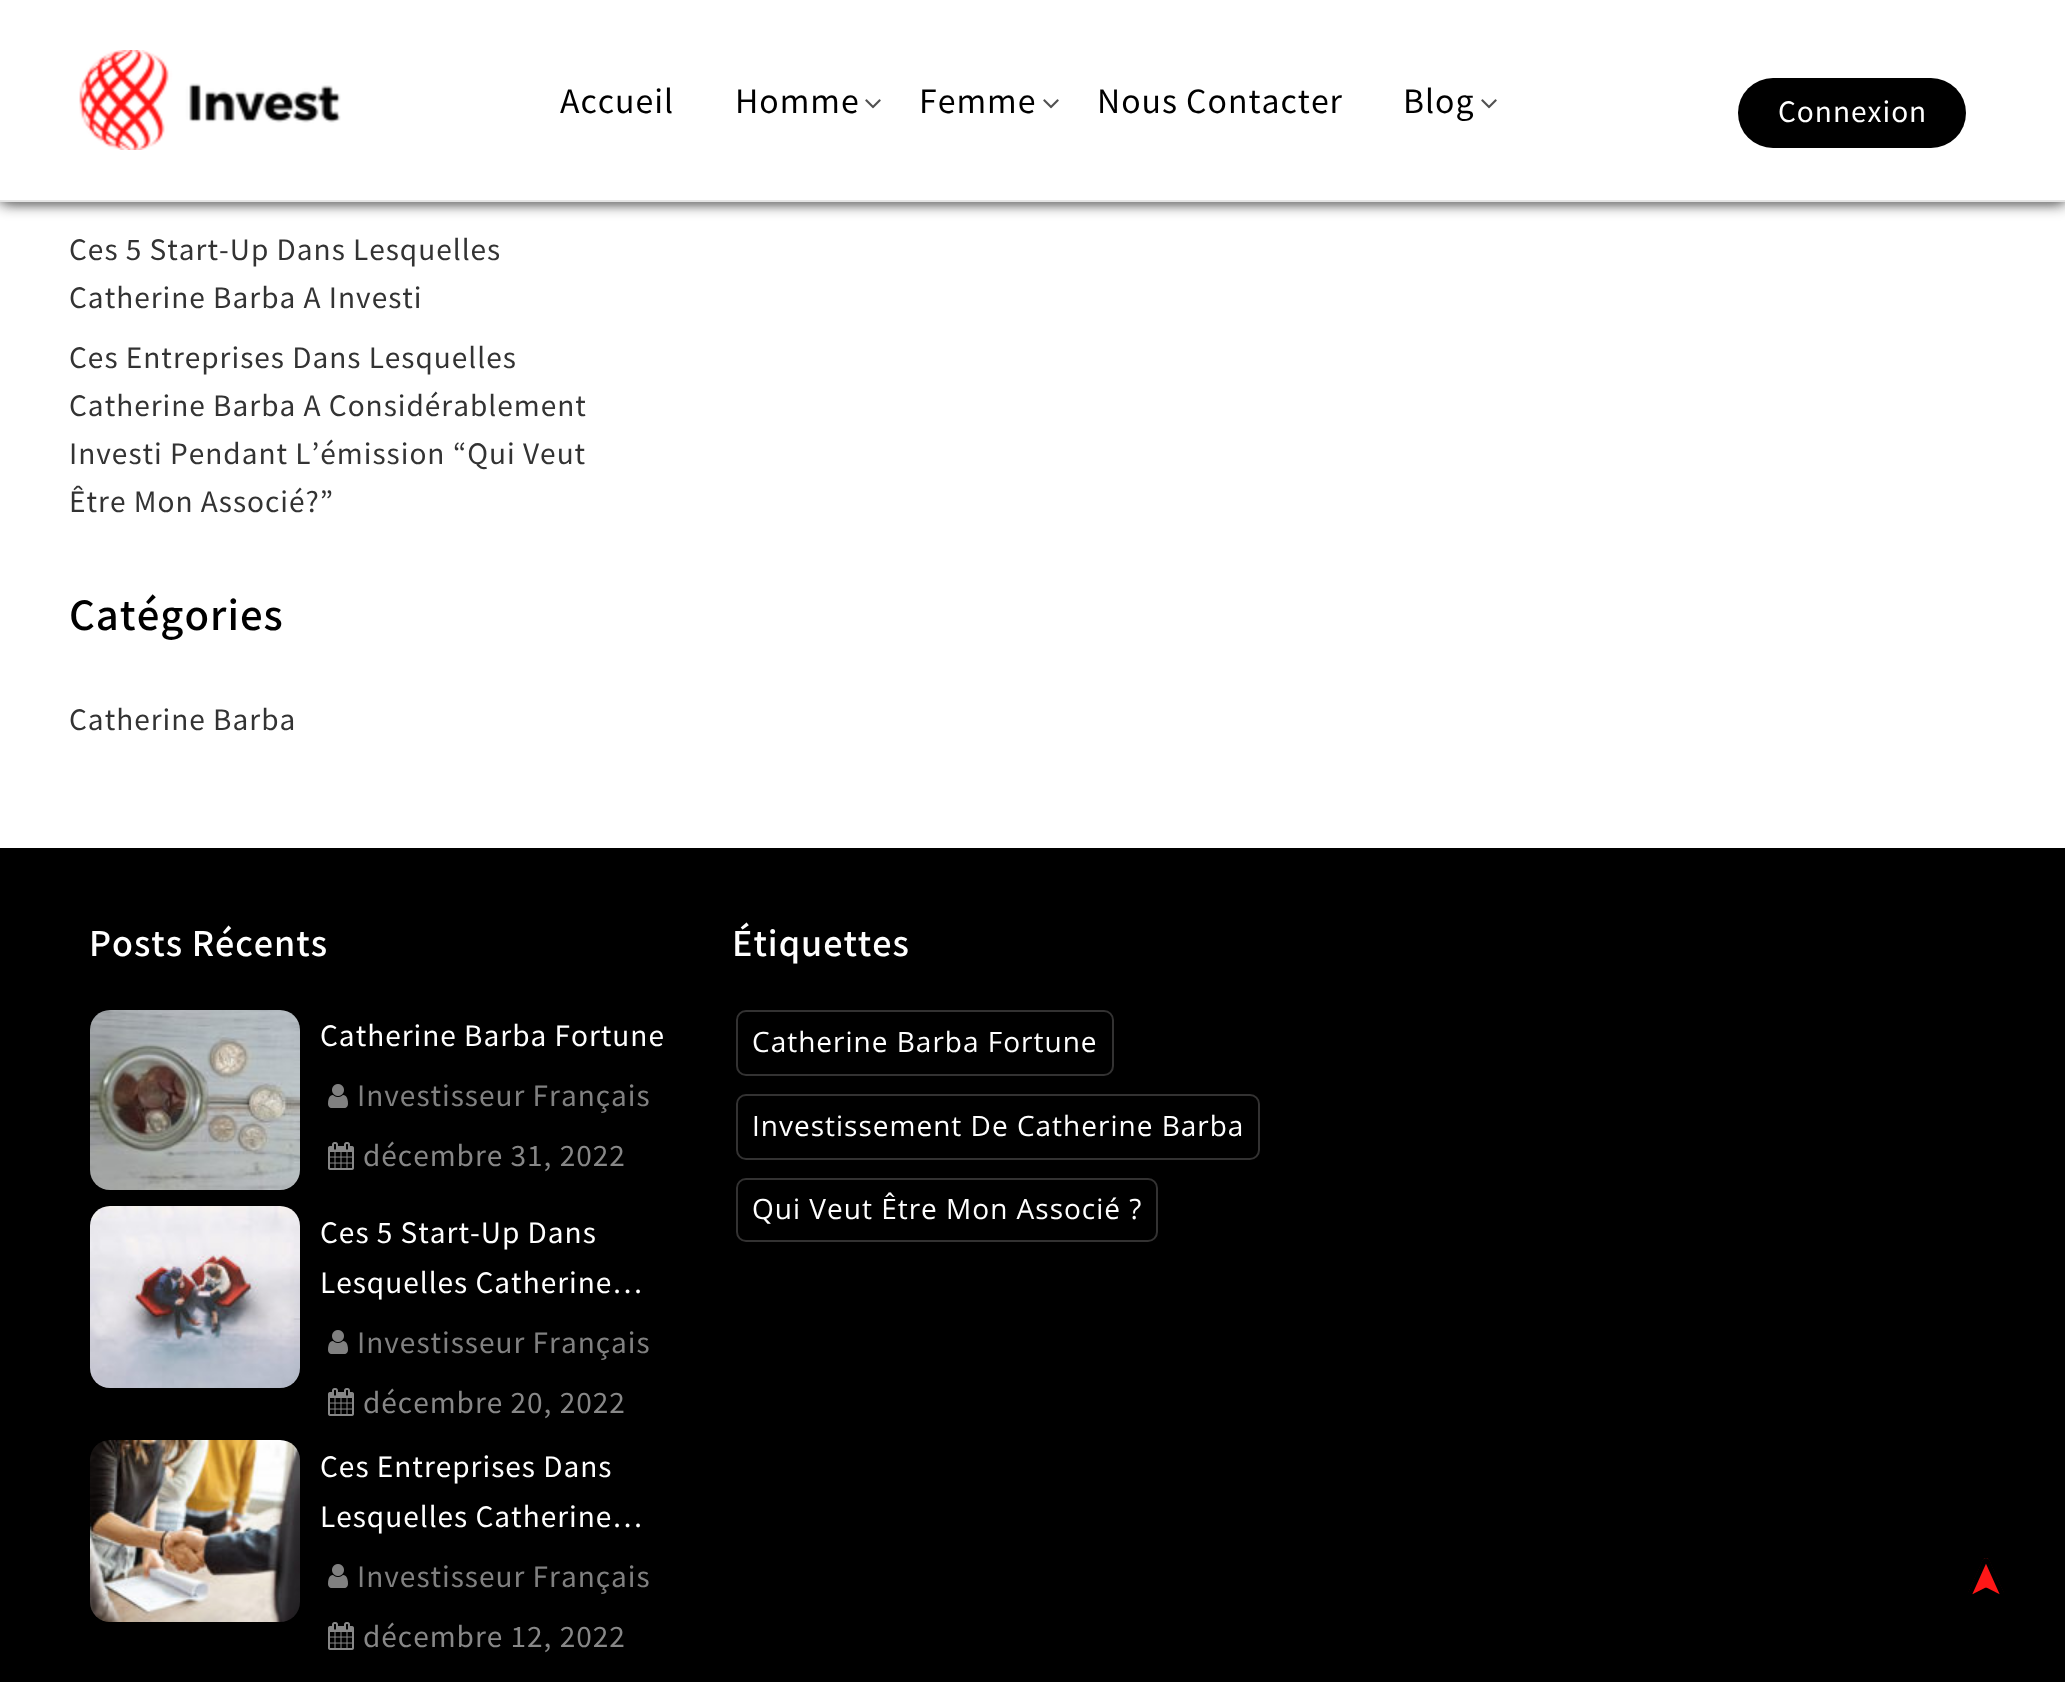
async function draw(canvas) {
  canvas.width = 2065;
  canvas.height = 1682;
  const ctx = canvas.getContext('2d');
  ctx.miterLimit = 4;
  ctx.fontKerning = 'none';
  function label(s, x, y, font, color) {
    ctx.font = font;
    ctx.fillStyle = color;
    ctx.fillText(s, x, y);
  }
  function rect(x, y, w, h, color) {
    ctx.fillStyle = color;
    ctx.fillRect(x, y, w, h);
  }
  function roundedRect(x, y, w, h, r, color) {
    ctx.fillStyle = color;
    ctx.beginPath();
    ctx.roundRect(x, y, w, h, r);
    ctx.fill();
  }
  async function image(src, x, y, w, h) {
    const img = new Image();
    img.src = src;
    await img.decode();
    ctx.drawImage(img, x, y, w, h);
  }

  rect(0, 0, 2065, 1682, '#fff');
  ctx.fillStyle = '#000000e6';
  ctx.filter = 'blur(8px)';
  ctx.beginPath();
  ctx.rect(0, 0, 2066, 202);
  ctx.fill();
  ctx.filter = 'none';
  ctx.fillStyle = '#909090';
  ctx.filter = 'blur(5px)';
  ctx.beginPath();
  ctx.rect(10, 20, 2046, 182);
  ctx.fill();
  ctx.filter = 'none';
  rect(0, 0, 2065, 200, '#fff');
  rect(0, 200, 2065, 2, '#e4e4e4');
  await image('assets/img1.png', 79, 50, 262, 100);
  ctx.letterSpacing = '1px';
  label('Accueil', 560, 113, '100 32px Noto Sans JP', '#000');
  label('Homme', 735, 113, '100 32px Noto Sans JP', '#000');
  await image('assets/img2.png', 865, 99, 16, 10);
  label('Femme', 919, 113, '100 32px Noto Sans JP', '#000');
  await image('assets/img2.png', 1043, 99, 16, 10);
  label('Nous Contacter', 1097, 113, '100 32px Noto Sans JP', '#000');
  label('Blog', 1403, 113, '100 32px Noto Sans JP', '#000');
  await image('assets/img2.png', 1481, 99, 16, 10);
  roundedRect(1738, 78, 228, 70, 35, '#000');
  label('Connexion', 1778, 122, '100 28px Noto Sans JP', '#fff');
  label('Ces 5 Start-Up Dans Lesquelles', 69, 260, '100 28px Noto Sans JP', '#333');
  label('Catherine Barba A Investi', 69, 308, '100 28px Noto Sans JP', '#333');
  label('Ces Entreprises Dans Lesquelles', 69, 368, '100 28px Noto Sans JP', '#333');
  label('Catherine Barba A Considérablement', 69, 416, '100 28px Noto Sans JP', '#333');
  label('Investi Pendant L’émission', 69, 464, '100 28px Noto Sans JP', '#333');
  label('“Qui Veut', 453, 464, '100 28px Noto Sans JP', '#333');
  label('Être Mon Associé?”', 69, 512, '100 28px Noto Sans JP', '#333');
  label('Catégories', 69, 630, '500 40px Noto Sans JP', '#000');
  label('Catherine Barba', 69, 730, '100 28px Noto Sans JP', '#333');
  rect(0, 848, 2065, 834, '#000');
  label('Posts Récents', 89, 956, '500 34px Noto Sans JP', '#fff');
  await image('assets/img3.png', 90, 1010, 210, 180);
  label('Catherine Barba Fortune', 320, 1046, '100 28px Noto Sans JP', '#fff');
  await image('assets/img4.png', 328, 1084, 20, 24);
  label('Investisseur Français', 357, 1106, '100 28px Noto Sans JP', '#808080');
  await image('assets/img5.png', 328, 1142, 26, 28);
  label('décembre 31, 2022', 363, 1166, '100 28px Noto Sans JP', '#878787');
  await image('assets/img6.png', 90, 1206, 210, 182);
  label('Ces 5 Start-Up Dans', 320, 1243, '100 28px Noto Sans JP', '#fff');
  label('Lesquelles Catherine…', 320, 1293, '100 28px Noto Sans JP', '#fff');
  await image('assets/img4.png', 328, 1330, 20, 24);
  label('Investisseur Français', 357, 1353, '100 28px Noto Sans JP', '#808080');
  await image('assets/img5.png', 328, 1388, 26, 28);
  label('décembre 20, 2022', 363, 1413, '100 28px Noto Sans JP', '#878787');
  await image('assets/img7.png', 90, 1440, 210, 182);
  label('Ces Entreprises Dans', 320, 1477, '100 28px Noto Sans JP', '#fff');
  label('Lesquelles Catherine…', 320, 1527, '100 28px Noto Sans JP', '#fff');
  await image('assets/img4.png', 328, 1564, 20, 24);
  label('Investisseur Français', 357, 1587, '100 28px Noto Sans JP', '#808080');
  await image('assets/img5.png', 328, 1622, 26, 28);
  label('décembre 12, 2022', 363, 1647, '100 28px Noto Sans JP', '#878787');
  label('Étiquettes', 732, 956, '500 34px Noto Sans JP', '#fff');
  ctx.beginPath();
  ctx.roundRect(737, 1011, 376, 64, 9);
  ctx.strokeStyle = '#333232';
  ctx.lineWidth = 2;
  ctx.stroke();
  label('Catherine Barba Fortune', 752, 1052, '28px Open Sans', '#fff');
  ctx.beginPath();
  ctx.roundRect(737, 1095, 522, 64, 9);
  ctx.stroke();
  label('Investissement De Catherine Barba', 752, 1136, '28px Open Sans', '#fff');
  ctx.beginPath();
  ctx.roundRect(737, 1179, 420, 62, 9);
  ctx.stroke();
  label('Qui Veut Être Mon Associé ?', 752, 1219, '28px Open Sans', '#fff');
  await image('assets/img8.png', 1968, 1558, 36, 37);
}

draw(document.querySelector('canvas'));
